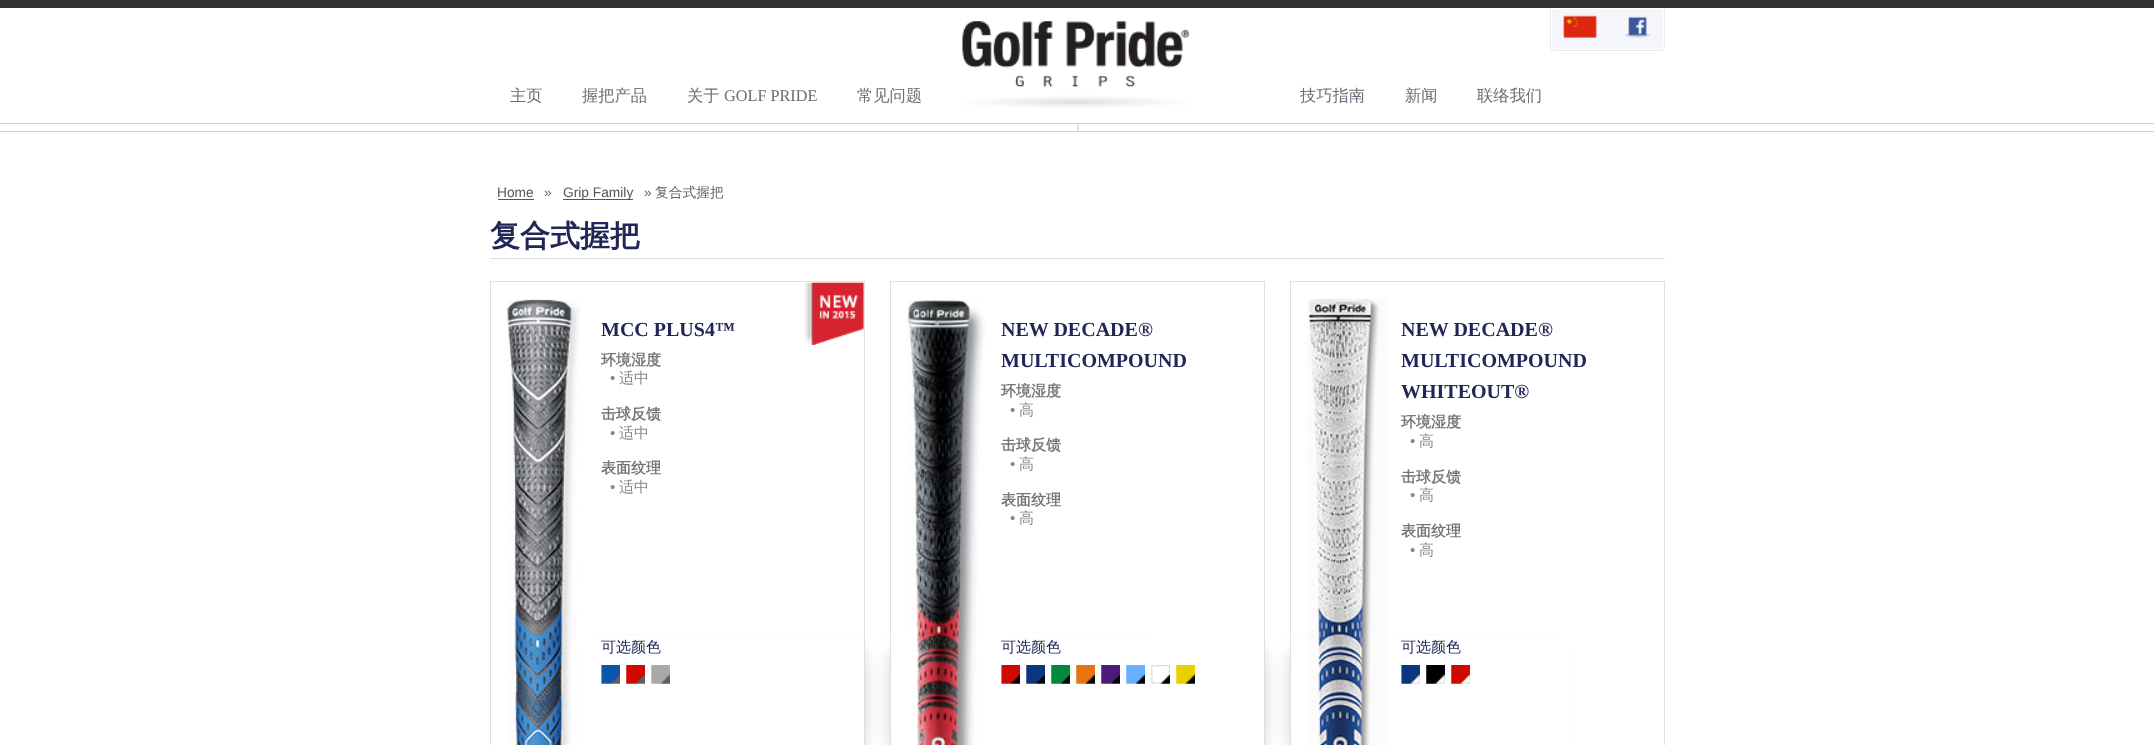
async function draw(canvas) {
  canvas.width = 2154;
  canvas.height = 745;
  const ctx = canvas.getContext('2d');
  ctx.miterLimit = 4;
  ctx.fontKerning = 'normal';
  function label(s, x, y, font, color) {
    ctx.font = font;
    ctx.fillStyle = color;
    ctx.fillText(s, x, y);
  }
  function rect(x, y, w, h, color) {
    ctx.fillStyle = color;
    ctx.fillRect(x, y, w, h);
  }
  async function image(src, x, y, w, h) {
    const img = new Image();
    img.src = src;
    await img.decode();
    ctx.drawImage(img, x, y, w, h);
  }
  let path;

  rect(0, 0, 2154, 745, '#fff');
  rect(0, 0, 2154, 8, '#342f30');
  rect(0, 123, 2154, 1, '#d1d1d2');
  await image('assets/img1.png', 962, 21, 227, 87);
  ctx.fillStyle = '#ebebeb';
  path = new Path2D('M1550 8H1665V46C1665 49 1663 51 1660 51H1555C1552 51 1550 49 1550 46ZM1551 8H1664V46C1664 48 1662 50 1660 50H1555C1553 50 1551 48 1551 46Z');
  ctx.fill(path, 'evenodd');
  ctx.fillStyle = '#f5f6fb';
  ctx.beginPath();
  ctx.roundRect(1551.5, 8.5, 112, 41, [0, 0, 4.5, 4.5]);
  ctx.fill();
  ctx.strokeStyle = '#fff';
  ctx.stroke();
  await image('assets/img2.png', 1563, 15, 34, 23);
  await image('assets/img3.png', 1625, 16, 26, 22);
  label('主页', 510, 101, '500 16.25px WenQuanYi Zen Hei', '#696c77');
  label('握把产品', 582, 101, '500 16.25px WenQuanYi Zen Hei', '#696c77');
  label('关于', 687, 101, '500 16.25px WenQuanYi Zen Hei', '#696c77');
  label('GOLF PRIDE', 724, 101, '16.25px Liberation Serif', '#696c77');
  label('常见问题', 857, 101, '500 16.25px WenQuanYi Zen Hei', '#696c77');
  label('技巧指南', 1300, 101, '500 16.25px WenQuanYi Zen Hei', '#696c77');
  label('新闻', 1405, 101, '500 16.25px WenQuanYi Zen Hei', '#696c77');
  label('联络我们', 1477, 101, '500 16.25px WenQuanYi Zen Hei', '#696c77');
  await image('assets/img4.png', 1077, 124, 2, 7);
  rect(0, 131, 2154, 1, '#d1d1d2');
  label('Home', 497, 197, '13.75px Liberation Sans', '#56565e');
  rect(498, 199, 36, 1, '#56565e');
  label('»', 544, 197, '13.75px Liberation Sans', '#666667');
  rect(563, 199, 70, 1, '#56565e');
  label('Grip Family', 563, 197, '13.75px Liberation Sans', '#56565e');
  label('»', 644, 197, '13.75px Liberation Sans', '#666667');
  label('复合式握把', 655, 197, '500 13.75px WenQuanYi Zen Hei', '#666667');
  rect(490, 258, 1175, 1, '#dfdfdf');
  label('复合式握把', 490, 246, 'bold 30px WenQuanYi Zen Hei', '#222657');
  ctx.fillStyle = '#0000004d';
  ctx.filter = 'blur(9.5px)';
  ctx.beginPath();
  ctx.rect(599, 653, 261, 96);
  ctx.fill();
  ctx.filter = 'none';
  rect(582, 636, 282, 109, '#fff');
  ctx.strokeStyle = '#dfdfdf';
  ctx.strokeRect(490.5, 281.5, 374, 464);
  await image('assets/img5.png', 507, 299, 73, 446);
  label('MCC PLUS4™', 601, 336, 'bold 20px Liberation Serif', '#222657');
  await image('assets/img6.png', 804, 282, 60, 63);
  label('环境湿度', 601, 365, 'bold 15px WenQuanYi Zen Hei', '#777');
  label('•', 610, 383, '15px Liberation Sans', '#888');
  label('适中', 619, 383, '500 15px WenQuanYi Zen Hei', '#888');
  label('击球反馈', 601, 419, 'bold 15px WenQuanYi Zen Hei', '#777');
  label('•', 610, 438, '15px Liberation Sans', '#888');
  label('适中', 619, 438, '500 15px WenQuanYi Zen Hei', '#888');
  label('表面纹理', 601, 473, 'bold 15px WenQuanYi Zen Hei', '#777');
  label('•', 610, 492, '15px Liberation Sans', '#888');
  label('适中', 619, 492, '500 15px WenQuanYi Zen Hei', '#888');
  label('可选颜色', 601, 652, '500 15px WenQuanYi Zen Hei', '#222657');
  await image('assets/img7.png', 601, 665, 19, 19);
  await image('assets/img8.png', 626, 665, 19, 19);
  await image('assets/img9.png', 651, 665, 19, 19);
  ctx.fillStyle = '#0000004d';
  ctx.filter = 'blur(9.5px)';
  ctx.beginPath();
  ctx.rect(895, 653, 261, 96);
  ctx.fill();
  ctx.filter = 'none';
  ctx.filter = 'blur(9.5px)';
  ctx.beginPath();
  ctx.rect(999, 653, 261, 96);
  ctx.fill();
  ctx.filter = 'none';
  rect(891, 633, 373, 112, '#fff');
  ctx.strokeRect(890.5, 281.5, 374, 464);
  await image('assets/img10.png', 907, 299, 78, 446);
  label('NEW DECADE®', 1001, 336, 'bold 20px Liberation Serif', '#222657');
  label('MULTICOMPOUND', 1001, 367, 'bold 20px Liberation Serif', '#222657');
  label('环境湿度', 1001, 396, 'bold 15px WenQuanYi Zen Hei', '#777');
  label('•', 1010, 415, '15px Liberation Sans', '#888');
  label('高', 1019, 415, '500 15px WenQuanYi Zen Hei', '#888');
  label('击球反馈', 1001, 450, 'bold 15px WenQuanYi Zen Hei', '#777');
  label('•', 1010, 469, '15px Liberation Sans', '#888');
  label('高', 1019, 469, '500 15px WenQuanYi Zen Hei', '#888');
  label('表面纹理', 1001, 505, 'bold 15px WenQuanYi Zen Hei', '#777');
  label('•', 1010, 523, '15px Liberation Sans', '#888');
  label('高', 1019, 523, '500 15px WenQuanYi Zen Hei', '#888');
  label('可选颜色', 1001, 652, '500 15px WenQuanYi Zen Hei', '#222657');
  await image('assets/img11.png', 1001, 665, 19, 19);
  await image('assets/img12.png', 1026, 665, 19, 19);
  await image('assets/img13.png', 1051, 665, 19, 19);
  await image('assets/img14.png', 1076, 665, 19, 19);
  await image('assets/img15.png', 1101, 665, 19, 19);
  await image('assets/img16.png', 1126, 665, 19, 19);
  await image('assets/img17.png', 1151, 665, 19, 19);
  await image('assets/img18.png', 1176, 665, 19, 19);
  ctx.fillStyle = '#0000004d';
  ctx.filter = 'blur(9.5px)';
  ctx.beginPath();
  ctx.rect(1295, 653, 261, 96);
  ctx.fill();
  ctx.filter = 'none';
  rect(1291, 636, 282, 109, '#fff');
  ctx.strokeRect(1290.5, 281.5, 374, 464);
  await image('assets/img19.png', 1307, 298, 81, 447);
  label('NEW DECADE®', 1401, 336, 'bold 20px Liberation Serif', '#222657');
  label('MULTICOMPOUND', 1401, 367, 'bold 20px Liberation Serif', '#222657');
  label('WHITEOUT®', 1401, 398, 'bold 20px Liberation Serif', '#222657');
  label('环境湿度', 1401, 427, 'bold 15px WenQuanYi Zen Hei', '#777');
  label('•', 1410, 446, '15px Liberation Sans', '#888');
  label('高', 1419, 446, '500 15px WenQuanYi Zen Hei', '#888');
  label('击球反馈', 1401, 482, 'bold 15px WenQuanYi Zen Hei', '#777');
  label('•', 1410, 500, '15px Liberation Sans', '#888');
  label('高', 1419, 500, '500 15px WenQuanYi Zen Hei', '#888');
  label('表面纹理', 1401, 536, 'bold 15px WenQuanYi Zen Hei', '#777');
  label('•', 1410, 555, '15px Liberation Sans', '#888');
  label('高', 1419, 555, '500 15px WenQuanYi Zen Hei', '#888');
  label('可选颜色', 1401, 652, '500 15px WenQuanYi Zen Hei', '#222657');
  await image('assets/img20.png', 1401, 665, 19, 19);
  await image('assets/img21.png', 1426, 665, 19, 19);
  await image('assets/img22.png', 1451, 665, 19, 19);
}

draw(document.querySelector('canvas'));
